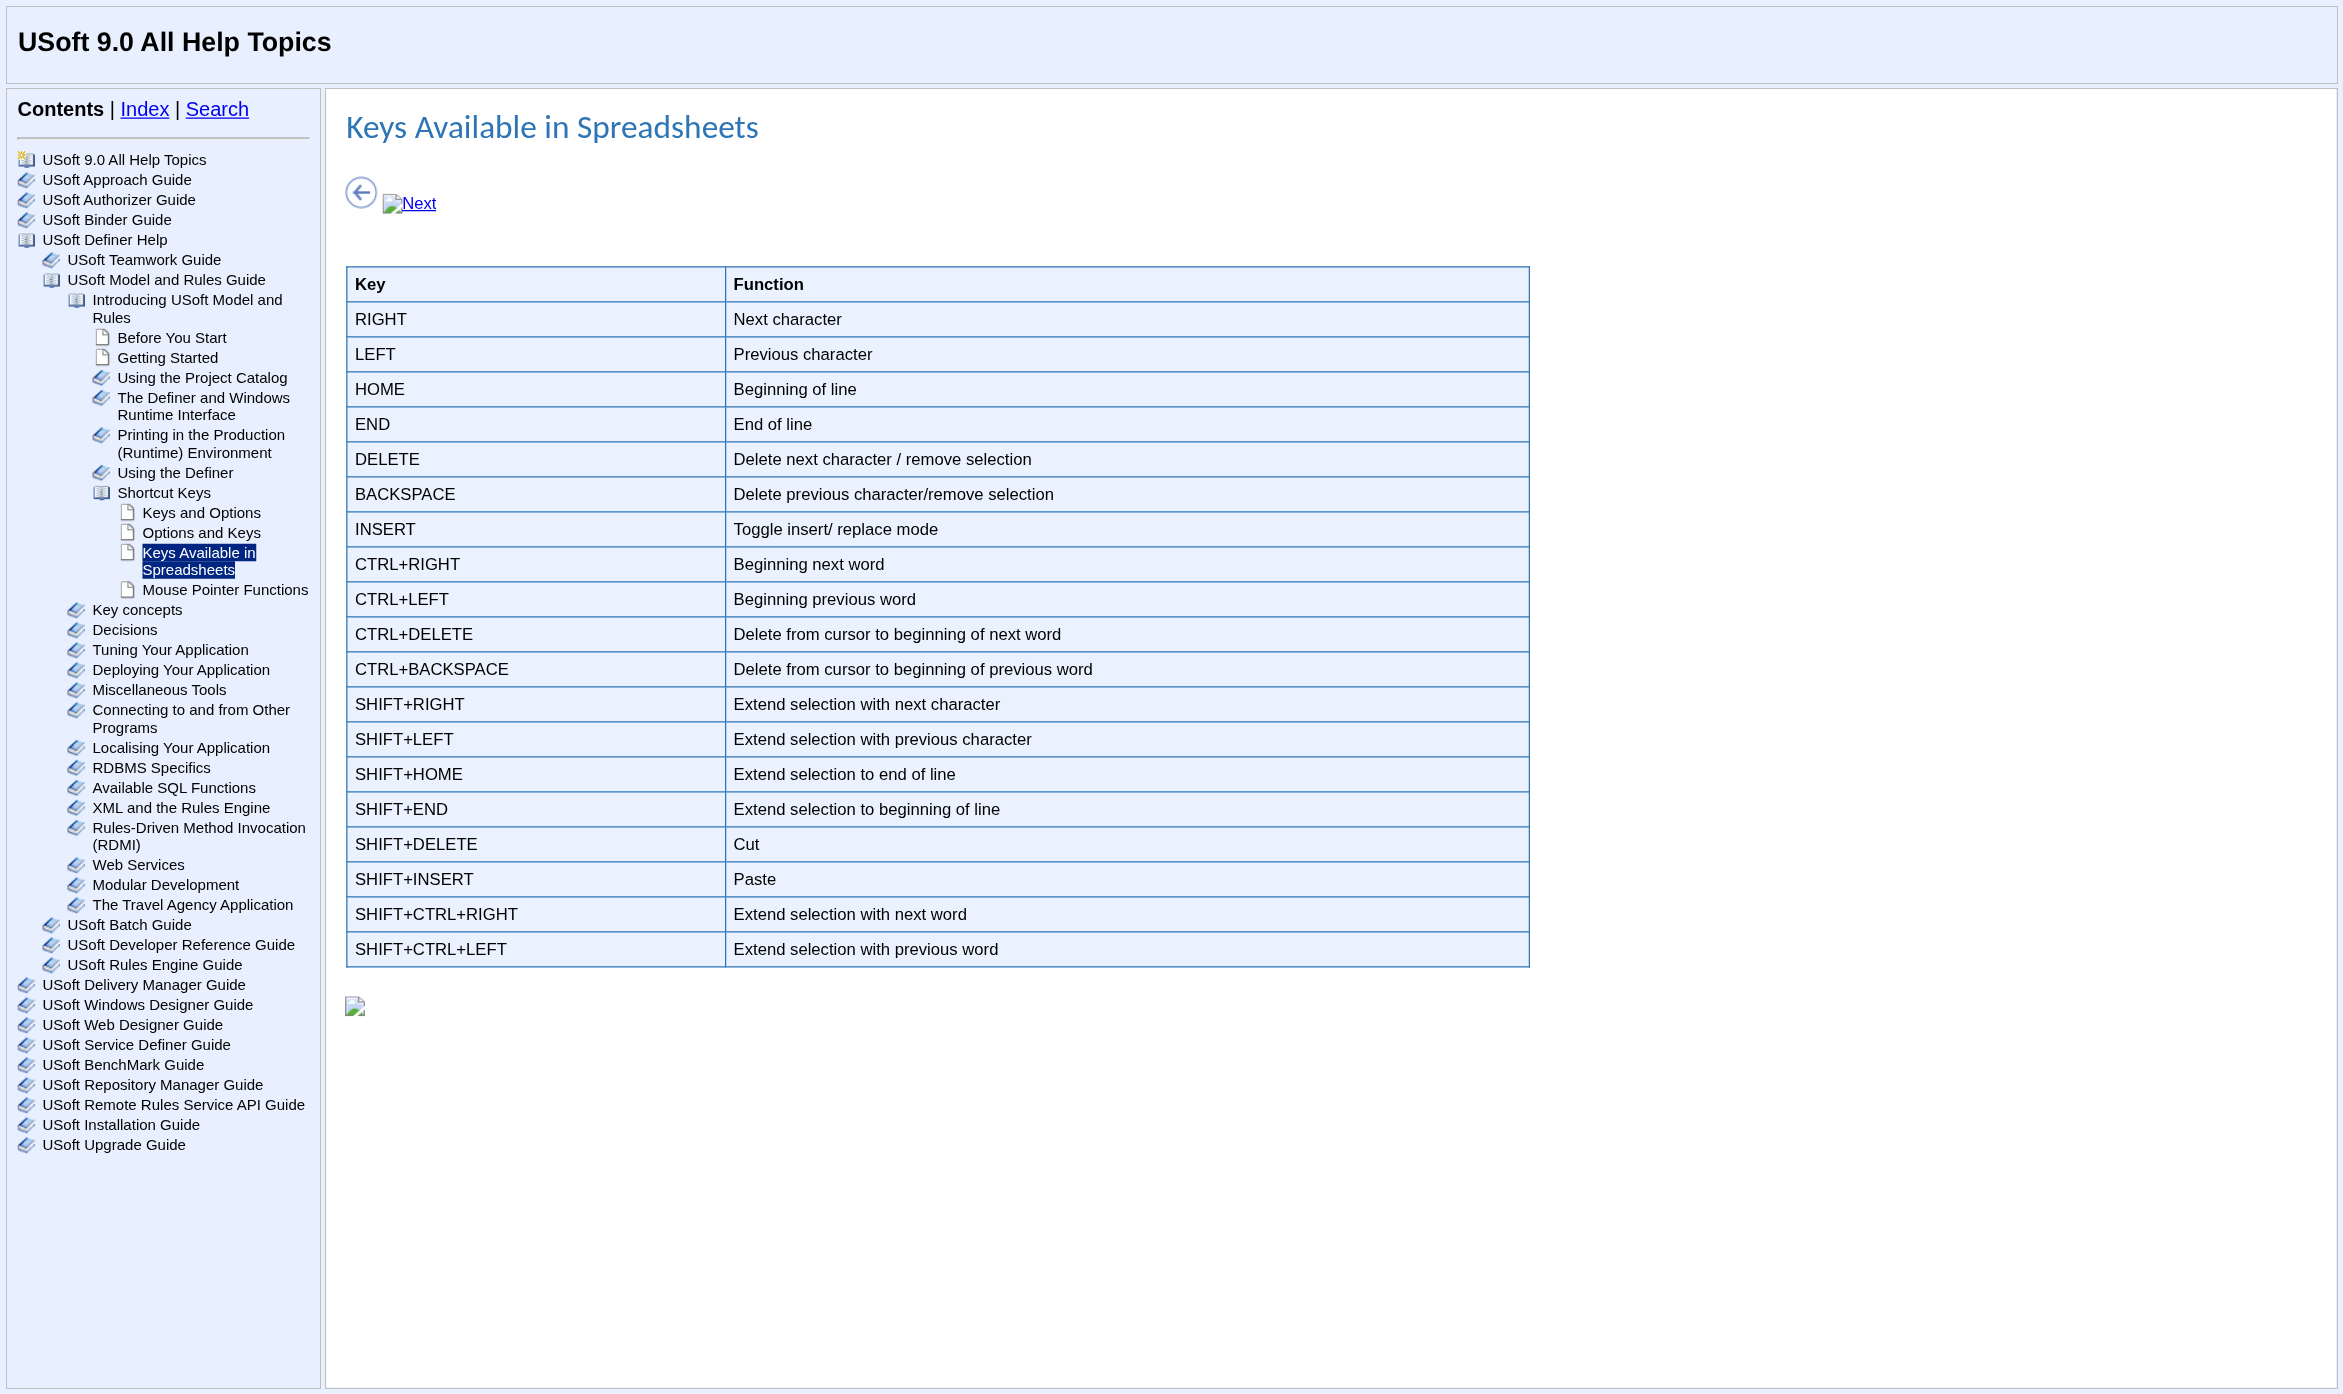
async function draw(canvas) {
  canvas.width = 2343;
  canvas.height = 1394;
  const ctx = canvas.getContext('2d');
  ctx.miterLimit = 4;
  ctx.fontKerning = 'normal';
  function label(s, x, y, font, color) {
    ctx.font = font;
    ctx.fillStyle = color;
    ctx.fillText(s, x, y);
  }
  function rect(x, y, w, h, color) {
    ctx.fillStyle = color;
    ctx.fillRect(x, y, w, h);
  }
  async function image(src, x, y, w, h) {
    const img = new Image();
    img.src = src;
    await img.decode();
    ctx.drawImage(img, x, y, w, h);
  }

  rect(0, 0, 2343, 1394, '#e8f0ff');
  ctx.strokeStyle = '#c0c0c0';
  ctx.strokeRect(6.5, 6.5, 2331, 77);
  label('USoft 9.0 All Help Topics', 18, 51, 'bold 26.75px Liberation Sans', '#000');
  ctx.strokeRect(6.5, 88.5, 314, 1300);
  await image('assets/img1.png', 17, 101, 293, 1053);
  ctx.strokeRect(325.5, 88.5, 2012, 1300);
  await image('assets/img2.png', 326, 89, 2010, 1299);
}

draw(document.querySelector('canvas'));
